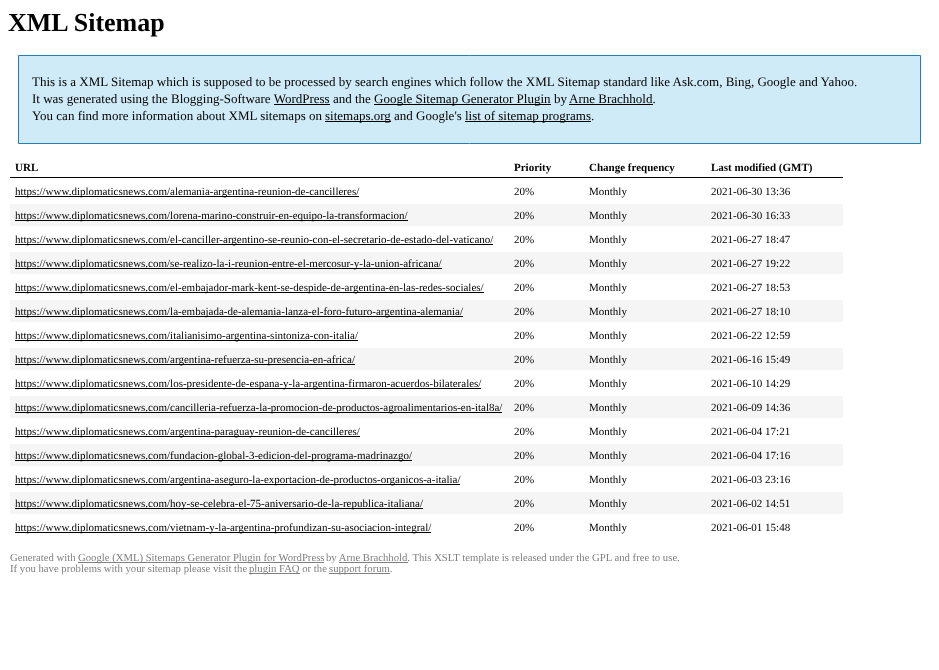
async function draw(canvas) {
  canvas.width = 939;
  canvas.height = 670;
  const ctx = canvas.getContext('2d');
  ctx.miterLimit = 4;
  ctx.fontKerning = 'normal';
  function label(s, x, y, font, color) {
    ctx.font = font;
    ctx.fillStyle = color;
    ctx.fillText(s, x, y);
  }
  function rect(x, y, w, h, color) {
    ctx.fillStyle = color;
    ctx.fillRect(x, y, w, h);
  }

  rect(0, 0, 939, 670, '#fff');
  label('XML Sitemap', 8, 31, 'bold 26px Liberation Serif', '#000');
  ctx.fillStyle = '#cfebf7';
  ctx.beginPath();
  ctx.rect(18.5, 55.5, 902, 88);
  ctx.fill();
  ctx.strokeStyle = '#2580b2';
  ctx.stroke();
  label('This is a XML Sitemap which is supposed to be processed by search engines which follow the XML Sitemap standard like Ask.com, Bing, Google and Yahoo.', 32, 86, '13px Liberation Serif', '#000');
  label('It was generated using the Blogging-Software WordPress and the', 32, 103, '13px Liberation Serif', '#000');
  rect(374, 104, 177, 1, '#000');
  label('Google Sitemap Generator Plugin', 374, 103, '13px Liberation Serif', '#000');
  label('by', 554, 103, '13px Liberation Serif', '#000');
  label('Arne Brachhold.', 569, 103, '13px Liberation Serif', '#000');
  rect(569, 104, 84, 1, '#000');
  rect(274, 104, 56, 1, '#000');
  label('You can find more information about XML sitemaps on', 32, 120, '13px Liberation Serif', '#000');
  rect(325, 121, 66, 1, '#000');
  label('sitemaps.org and Google\'s', 325, 120, '13px Liberation Serif', '#000');
  rect(465, 121, 126, 1, '#000');
  label('list of sitemap programs.', 465, 120, '13px Liberation Serif', '#000');
  rect(10, 177, 833, 1, '#000');
  label('URL', 15, 171, 'bold 11px Liberation Serif', '#000');
  label('Priority', 514, 171, 'bold 11px Liberation Serif', '#000');
  label('Change frequency', 589, 171, 'bold 11px Liberation Serif', '#000');
  label('Last modified (GMT)', 711, 171, 'bold 11px Liberation Serif', '#000');
  rect(15, 196, 344, 1, '#000');
  label('https://www.diplomaticsnews.com/alemania-argentina-reunion-de-cancilleres/', 15, 195, '11px Liberation Serif', '#000');
  label('20%', 514, 195, '11px Liberation Serif', '#000');
  label('Monthly', 589, 195, '11px Liberation Serif', '#000');
  label('2021-06-30 13:36', 711, 195, '11px Liberation Serif', '#000');
  rect(10, 204, 833, 22, '#f5f5f5');
  rect(15, 220, 393, 1, '#000');
  label('https://www.diplomaticsnews.com/lorena-marino-construir-en-equipo-la-transformacion/', 15, 219, '11px Liberation Serif', '#000');
  label('20%', 514, 219, '11px Liberation Serif', '#000');
  label('Monthly', 589, 219, '11px Liberation Serif', '#000');
  label('2021-06-30 16:33', 711, 219, '11px Liberation Serif', '#000');
  rect(15, 244, 478, 1, '#000');
  label('https://www.diplomaticsnews.com/el-canciller-argentino-se-reunio-con-el-secretario-de-estado-del-vaticano/', 15, 243, '11px Liberation Serif', '#000');
  label('20%', 514, 243, '11px Liberation Serif', '#000');
  label('Monthly', 589, 243, '11px Liberation Serif', '#000');
  label('2021-06-27 18:47', 711, 243, '11px Liberation Serif', '#000');
  rect(10, 252, 833, 22, '#f5f5f5');
  rect(15, 268, 427, 1, '#000');
  label('https://www.diplomaticsnews.com/se-realizo-la-i-reunion-entre-el-mercosur-y-la-union-africana/', 15, 267, '11px Liberation Serif', '#000');
  label('20%', 514, 267, '11px Liberation Serif', '#000');
  label('Monthly', 589, 267, '11px Liberation Serif', '#000');
  label('2021-06-27 19:22', 711, 267, '11px Liberation Serif', '#000');
  rect(15, 292, 469, 1, '#000');
  label('https://www.diplomaticsnews.com/el-embajador-mark-kent-se-despide-de-argentina-en-las-redes-sociales/', 15, 291, '11px Liberation Serif', '#000');
  label('20%', 514, 291, '11px Liberation Serif', '#000');
  label('Monthly', 589, 291, '11px Liberation Serif', '#000');
  label('2021-06-27 18:53', 711, 291, '11px Liberation Serif', '#000');
  rect(10, 300, 833, 22, '#f5f5f5');
  rect(15, 316, 448, 1, '#000');
  label('https://www.diplomaticsnews.com/la-embajada-de-alemania-lanza-el-foro-futuro-argentina-alemania/', 15, 315, '11px Liberation Serif', '#000');
  label('20%', 514, 315, '11px Liberation Serif', '#000');
  label('Monthly', 589, 315, '11px Liberation Serif', '#000');
  label('2021-06-27 18:10', 711, 315, '11px Liberation Serif', '#000');
  rect(15, 340, 343, 1, '#000');
  label('https://www.diplomaticsnews.com/italianisimo-argentina-sintoniza-con-italia/', 15, 339, '11px Liberation Serif', '#000');
  label('20%', 514, 339, '11px Liberation Serif', '#000');
  label('Monthly', 589, 339, '11px Liberation Serif', '#000');
  label('2021-06-22 12:59', 711, 339, '11px Liberation Serif', '#000');
  rect(10, 348, 833, 22, '#f5f5f5');
  rect(15, 364, 340, 1, '#000');
  label('https://www.diplomaticsnews.com/argentina-refuerza-su-presencia-en-africa/', 15, 363, '11px Liberation Serif', '#000');
  label('20%', 514, 363, '11px Liberation Serif', '#000');
  label('Monthly', 589, 363, '11px Liberation Serif', '#000');
  label('2021-06-16 15:49', 711, 363, '11px Liberation Serif', '#000');
  rect(15, 388, 466, 1, '#000');
  label('https://www.diplomaticsnews.com/los-presidente-de-espana-y-la-argentina-firmaron-acuerdos-bilaterales/', 15, 387, '11px Liberation Serif', '#000');
  label('20%', 514, 387, '11px Liberation Serif', '#000');
  label('Monthly', 589, 387, '11px Liberation Serif', '#000');
  label('2021-06-10 14:29', 711, 387, '11px Liberation Serif', '#000');
  rect(10, 396, 833, 22, '#f5f5f5');
  rect(15, 412, 487, 1, '#000');
  label('https://www.diplomaticsnews.com/cancilleria-refuerza-la-promocion-de-productos-agroalimentarios-en-ital8a/', 15, 411, '11px Liberation Serif', '#000');
  label('20%', 514, 411, '11px Liberation Serif', '#000');
  label('Monthly', 589, 411, '11px Liberation Serif', '#000');
  label('2021-06-09 14:36', 711, 411, '11px Liberation Serif', '#000');
  rect(15, 436, 345, 1, '#000');
  label('https://www.diplomaticsnews.com/argentina-paraguay-reunion-de-cancilleres/', 15, 435, '11px Liberation Serif', '#000');
  label('20%', 514, 435, '11px Liberation Serif', '#000');
  label('Monthly', 589, 435, '11px Liberation Serif', '#000');
  label('2021-06-04 17:21', 711, 435, '11px Liberation Serif', '#000');
  rect(10, 444, 833, 22, '#f5f5f5');
  rect(15, 460, 397, 1, '#000');
  label('https://www.diplomaticsnews.com/fundacion-global-3-edicion-del-programa-madrinazgo/', 15, 459, '11px Liberation Serif', '#000');
  label('20%', 514, 459, '11px Liberation Serif', '#000');
  label('Monthly', 589, 459, '11px Liberation Serif', '#000');
  label('2021-06-04 17:16', 711, 459, '11px Liberation Serif', '#000');
  rect(15, 484, 445, 1, '#000');
  label('https://www.diplomaticsnews.com/argentina-aseguro-la-exportacion-de-productos-organicos-a-italia/', 15, 483, '11px Liberation Serif', '#000');
  label('20%', 514, 483, '11px Liberation Serif', '#000');
  label('Monthly', 589, 483, '11px Liberation Serif', '#000');
  label('2021-06-03 23:16', 711, 483, '11px Liberation Serif', '#000');
  rect(10, 492, 833, 22, '#f5f5f5');
  rect(15, 508, 408, 1, '#000');
  label('https://www.diplomaticsnews.com/hoy-se-celebra-el-75-aniversario-de-la-republica-italiana/', 15, 507, '11px Liberation Serif', '#000');
  label('20%', 514, 507, '11px Liberation Serif', '#000');
  label('Monthly', 589, 507, '11px Liberation Serif', '#000');
  label('2021-06-02 14:51', 711, 507, '11px Liberation Serif', '#000');
  rect(15, 532, 416, 1, '#000');
  label('https://www.diplomaticsnews.com/vietnam-y-la-argentina-profundizan-su-asociacion-integral/', 15, 531, '11px Liberation Serif', '#000');
  label('20%', 514, 531, '11px Liberation Serif', '#000');
  label('Monthly', 589, 531, '11px Liberation Serif', '#000');
  label('2021-06-01 15:48', 711, 531, '11px Liberation Serif', '#000');
  label('Generated with', 10, 561, '10.7px Liberation Serif', '#808080');
  rect(78, 562, 246, 1, '#808080');
  label('Google (XML) Sitemaps Generator Plugin for WordPress', 78, 561, '10.7px Liberation Serif', '#808080');
  label('by Arne Brachhold. This XSLT template is released under the GPL and free to use.', 326, 561, '10.7px Liberation Serif', '#808080');
  rect(339, 562, 69, 1, '#808080');
  label('If you have problems with your sitemap please visit the', 10, 572, '10.7px Liberation Serif', '#808080');
  rect(249, 573, 51, 1, '#808080');
  label('plugin FAQ or the', 249, 572, '10.7px Liberation Serif', '#808080');
  rect(329, 573, 61, 1, '#808080');
  label('support forum.', 329, 572, '10.7px Liberation Serif', '#808080');
}

draw(document.querySelector('canvas'));
